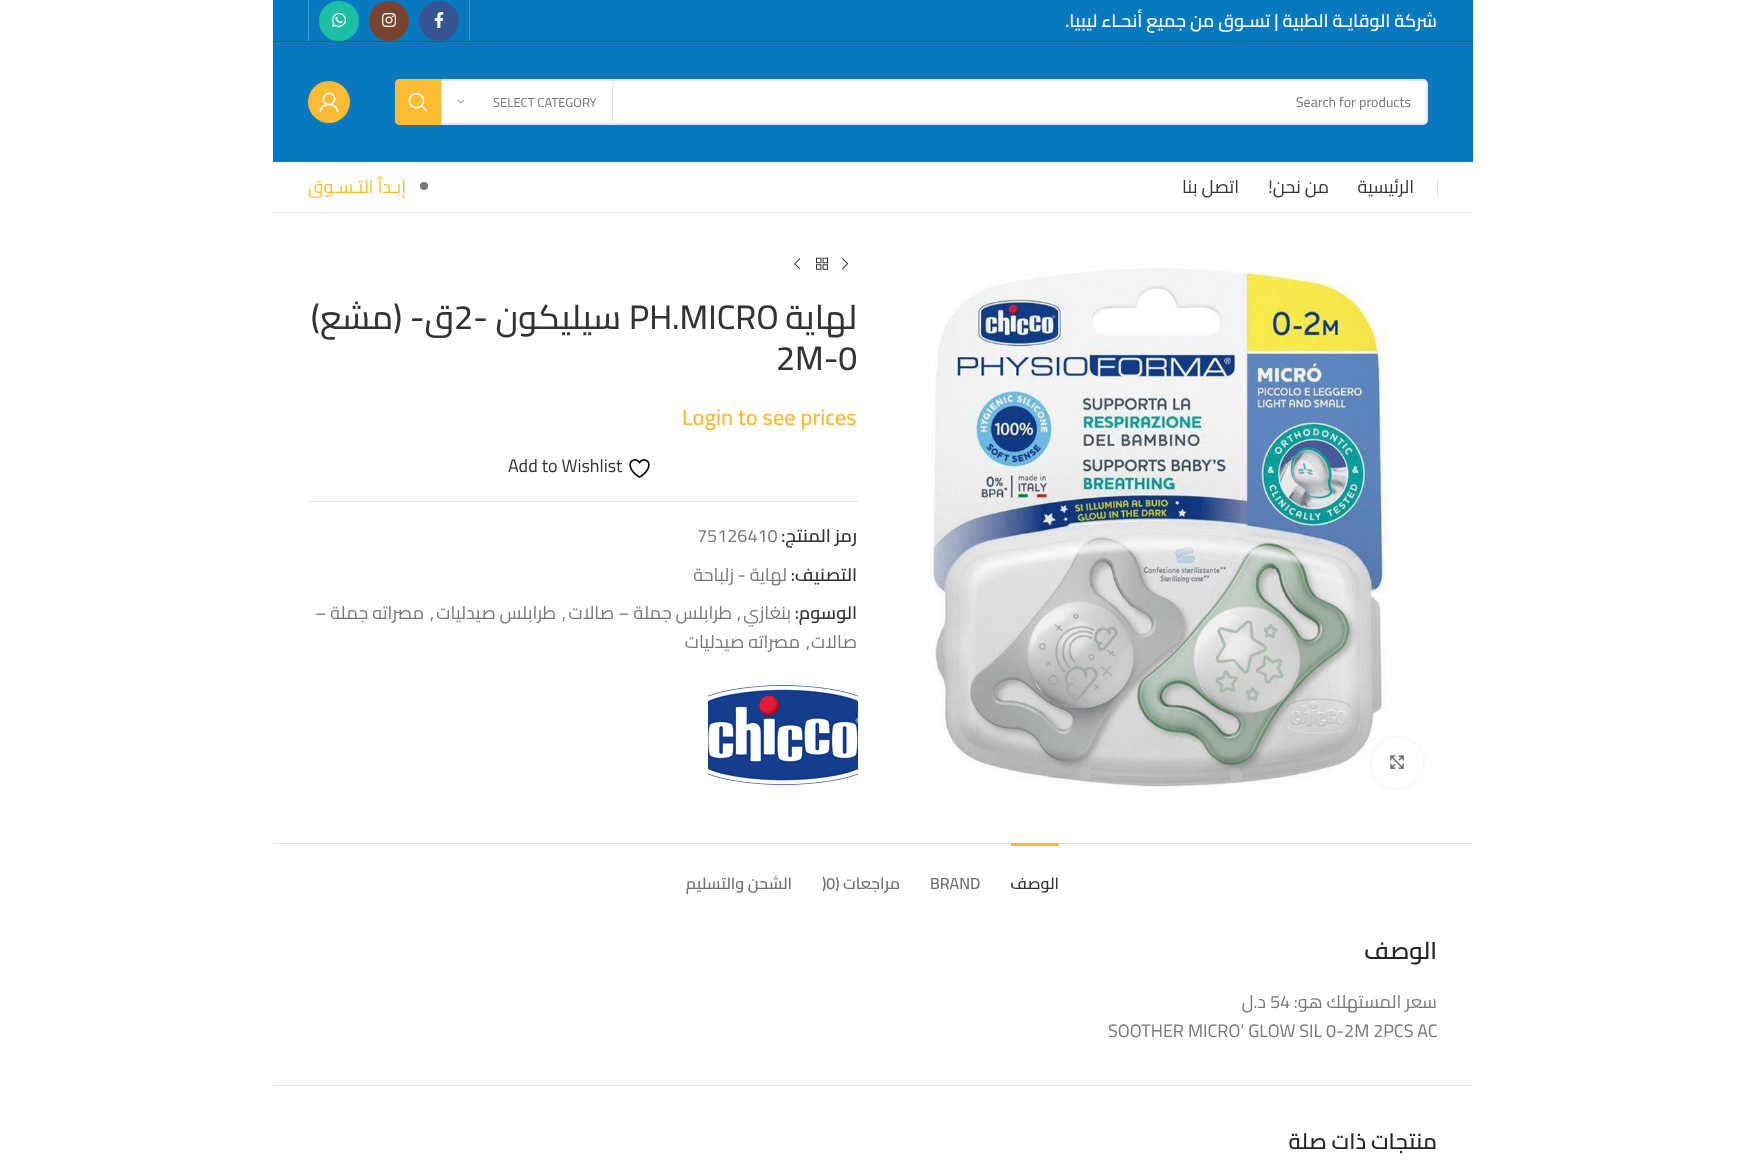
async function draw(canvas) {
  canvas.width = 1745;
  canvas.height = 1160;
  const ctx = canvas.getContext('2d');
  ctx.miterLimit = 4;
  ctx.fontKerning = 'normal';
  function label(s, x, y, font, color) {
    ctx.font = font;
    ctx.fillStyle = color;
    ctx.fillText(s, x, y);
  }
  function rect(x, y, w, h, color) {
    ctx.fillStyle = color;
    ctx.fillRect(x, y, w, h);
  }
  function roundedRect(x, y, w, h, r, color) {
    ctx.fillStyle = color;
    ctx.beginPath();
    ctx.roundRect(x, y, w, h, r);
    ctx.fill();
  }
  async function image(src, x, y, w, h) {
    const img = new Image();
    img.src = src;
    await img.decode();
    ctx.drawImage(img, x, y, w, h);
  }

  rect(0, 0, 1745, 1160, '#fff');
  rect(273, 0, 1200, 41, '#0979bf');
  rect(273, 41, 1200, 1, '#3a4d69');
  ctx.direction = 'rtl';
  label('شركة الوقايـة الطبية | تسـوق من جميع أنحـاء ليبيا.', 1437, 27, '600 18px Cairo', '#fff');
  rect(469, 0, 1, 41, '#479bcf');
  ctx.fillStyle = '#365493';
  ctx.beginPath();
  ctx.arc(439, 21, 20, 0, 2 * Math.PI);
  ctx.fill();
  await image('assets/img1.png', 434, 12, 10, 16);
  ctx.fillStyle = '#774430';
  ctx.beginPath();
  ctx.arc(389, 21, 20, 0, 2 * Math.PI);
  ctx.fill();
  await image('assets/img2.png', 382, 13, 14, 14);
  ctx.fillStyle = '#1ebea5';
  ctx.beginPath();
  ctx.arc(339, 21, 20, 0, 2 * Math.PI);
  ctx.fill();
  await image('assets/img3.png', 332, 13, 14, 14);
  rect(308, 0, 1, 41, '#479bcf');
  rect(273, 42, 1200, 120, '#0979bf');
  roundedRect(395, 79, 1033, 46, 5, '#fff');
  ctx.beginPath();
  ctx.roundRect(396, 80, 1031, 44, 4);
  ctx.strokeStyle = '#0000001a';
  ctx.lineWidth = 2;
  ctx.stroke();
  ctx.direction = 'ltr';
  label('Search for products', 1296, 107, '14px Cairo', '#777');
  rect(612, 81, 1, 42, '#e6e6e6');
  rect(441, 81, 1, 42, '#e6e6e6');
  label('SELECT CATEGORY', 493, 107, '13px Cairo', '#777');
  await image('assets/img4.png', 457, 99, 8, 5);
  ctx.fillStyle = '#fbbc34';
  ctx.beginPath();
  ctx.roundRect(395, 79, 46, 46, [5, 0, 0, 5]);
  ctx.fill();
  await image('assets/img5.png', 408, 92, 20, 20);
  ctx.beginPath();
  ctx.arc(329, 102, 21, 0, 2 * Math.PI);
  ctx.fill();
  await image('assets/img6.png', 319, 92, 20, 20);
  rect(273, 212, 1200, 1, '#e6e6e6');
  rect(1437, 178, 1, 18, '#e4e4e4');
  ctx.direction = 'rtl';
  label('الرئيسية', 1414, 193, '18px Cairo', '#333');
  label('من نحن!', 1329, 193, '18px Cairo', '#333');
  label('اتصل بنا', 1239, 193, '18px Cairo', '#333');
  ctx.fillStyle = '#777';
  ctx.beginPath();
  ctx.arc(424, 186, 4, 0, 2 * Math.PI);
  ctx.fill();
  label('إبـدأ التـسـوق', 406, 193, '18px Cairo', '#fbbc34');
  await image('assets/img8.png', 923, 268, 464, 522);
  ctx.fillStyle = '#00000014';
  ctx.filter = 'blur(2.5px)';
  ctx.beginPath();
  ctx.roundRect(1372, 738, 51, 50, 25);
  ctx.fill();
  ctx.filter = 'none';
  roundedRect(1372, 738, 51, 50, 25, '#fff');
  await image('assets/img7.png', 1390, 755, 14, 14);
  await image('assets/img9.png', 842, 258, 7, 12);
  await image('assets/img10.png', 816, 257, 12, 13);
  await image('assets/img11.png', 794, 258, 7, 12);
  label('لهاية', 857, 329, '500 34px Cairo', '#333');
  ctx.direction = 'ltr';
  label('PH.MICRO', 629, 329, '500 34px Cairo', '#333');
  ctx.direction = 'rtl';
  label('سيليكون -', 621, 329, '500 34px Cairo', '#333');
  ctx.direction = 'ltr';
  label('2', 454, 329, '500 34px Cairo', '#333');
  ctx.direction = 'rtl';
  label('ق- (مشع)', 454, 329, '500 34px Cairo', '#333');
  ctx.direction = 'ltr';
  label('2M-0', 776, 370, '500 34px Cairo', '#333');
  label('Login to see prices', 682, 425, '600 22.25px Cairo', '#fbbc34');
  await image('assets/img12.png', 629, 459, 21, 19);
  label('Add to Wishlist', 508, 472, '18px Cairo', '#333');
  rect(308, 501, 550, 1, '#e4e4e4');
  ctx.direction = 'rtl';
  label('رمز المنتج:', 857, 542, '600 18px Cairo', '#333');
  ctx.direction = 'ltr';
  label('75126410', 697, 542, '18px Cairo', '#777');
  ctx.direction = 'rtl';
  label('التصنيف:', 857, 581, '600 18px Cairo', '#333');
  label('لهاية - زلباحة', 787, 581, '18px Cairo', '#777');
  label('الوسوم:', 857, 619, '600 18px Cairo', '#333');
  label('بنغازي', 791, 619, '18px Cairo', '#777');
  ctx.direction = 'ltr';
  label(',', 737, 619, '18px Cairo', '#777');
  ctx.direction = 'rtl';
  label('طرابلس جملة – صالات', 732, 619, '18px Cairo', '#777');
  ctx.direction = 'ltr';
  label(',', 562, 619, '18px Cairo', '#777');
  ctx.direction = 'rtl';
  label('طرابلس صيدليات', 556, 619, '18px Cairo', '#777');
  ctx.direction = 'ltr';
  label(',', 430, 619, '18px Cairo', '#777');
  ctx.direction = 'rtl';
  label('مصراته جملة –', 424, 619, '18px Cairo', '#777');
  label('صالات', 857, 648, '18px Cairo', '#777');
  label('مصراته صيدليات', 800, 648, '18px Cairo', '#777');
  ctx.direction = 'ltr';
  label(',', 806, 648, '18px Cairo', '#777');
  await image('assets/img13.png', 708, 685, 150, 100);
  rect(273, 843, 1200, 1, '#e4e4e4');
  rect(273, 1085, 1200, 1, '#e4e4e4');
  rect(1011, 843, 48, 3, '#fbbc34');
  ctx.direction = 'rtl';
  label('الوصف', 1059, 889, '600 16px Cairo', '#333');
  ctx.direction = 'ltr';
  label('BRAND', 930, 889, '600 16px Cairo', '#707070');
  ctx.direction = 'rtl';
  label('مراجعات (', 900, 889, '600 16px Cairo', '#707070');
  ctx.direction = 'ltr';
  label(')0', 822, 889, '600 16px Cairo', '#707070');
  ctx.direction = 'rtl';
  label('الشحن والتسليم', 792, 889, '600 16px Cairo', '#707070');
  label('الوصف', 1437, 959, '600 24px Cairo', '#242424');
  label('سعر المستهلك هو:', 1437, 1008, '18px Cairo', '#777');
  ctx.direction = 'ltr';
  label('54', 1270, 1008, '18px Cairo', '#777');
  ctx.direction = 'rtl';
  label('د.ل', 1266, 1008, '18px Cairo', '#777');
  ctx.direction = 'ltr';
  label('SOOTHER MICRO’ GLOW SIL 0-2M 2PCS AC', 1108, 1037, '18px Cairo', '#777');
  ctx.direction = 'rtl';
  label('منتجات ذات صلة', 1437, 1149, '600 22px Cairo', '#242424');
}

draw(document.querySelector('canvas'));
